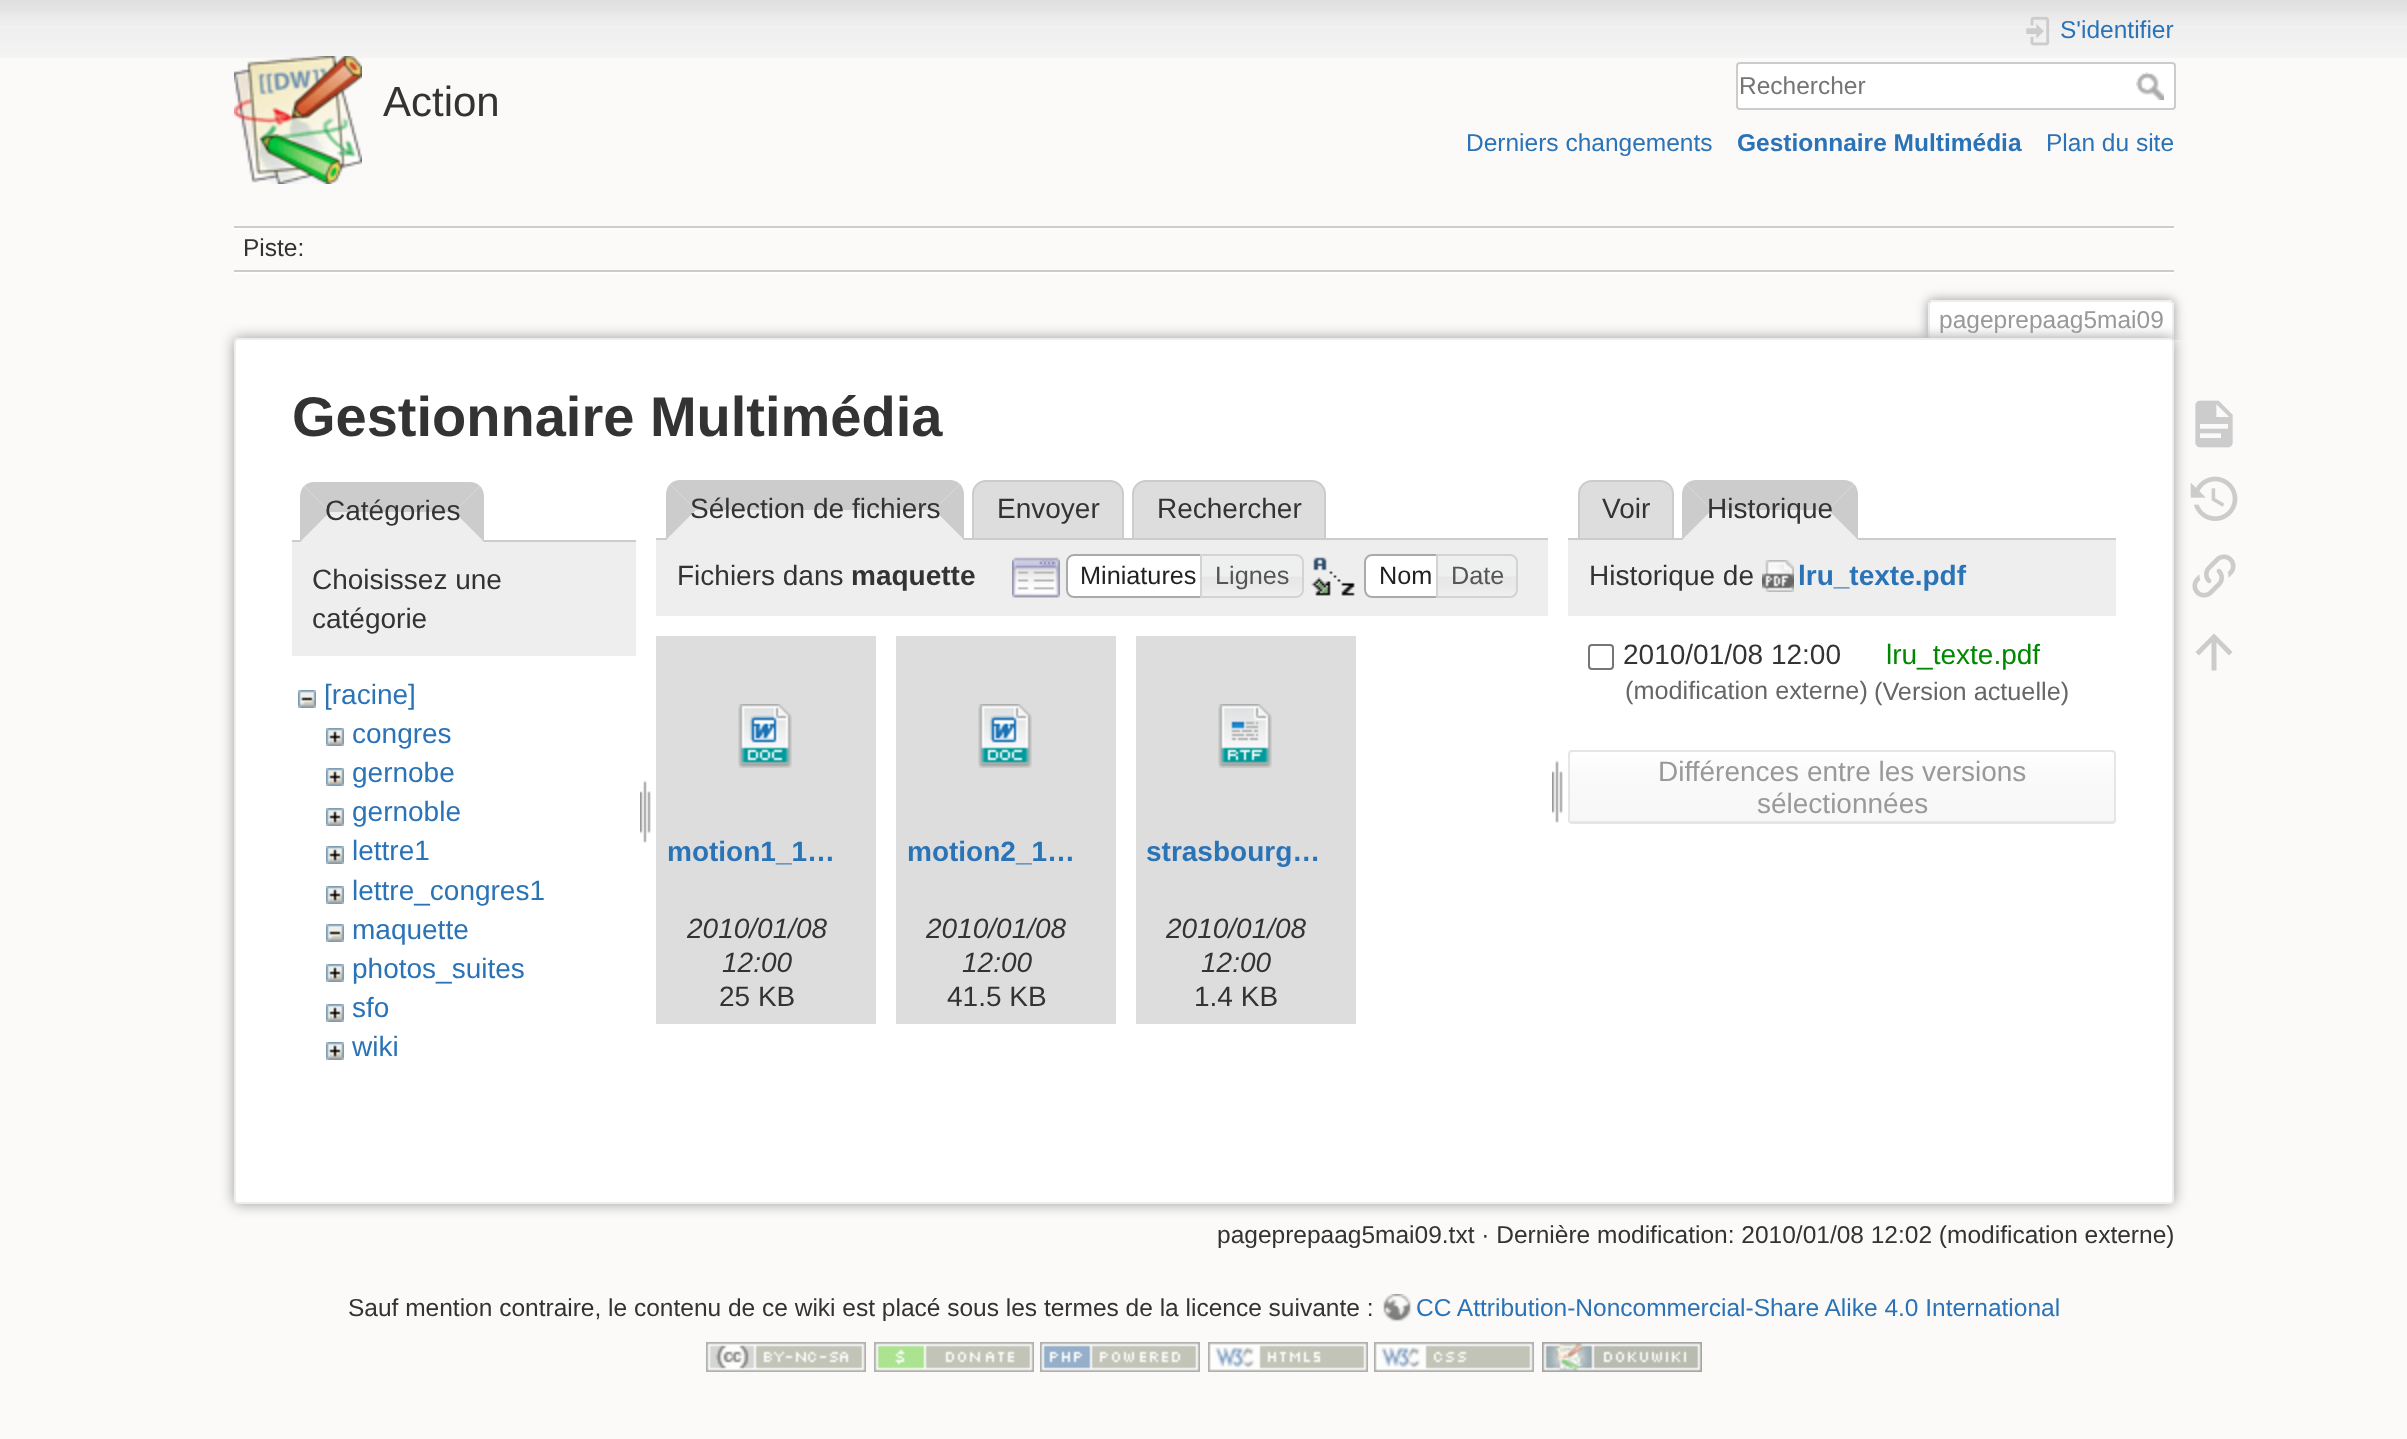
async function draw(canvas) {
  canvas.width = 2407;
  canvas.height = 1439;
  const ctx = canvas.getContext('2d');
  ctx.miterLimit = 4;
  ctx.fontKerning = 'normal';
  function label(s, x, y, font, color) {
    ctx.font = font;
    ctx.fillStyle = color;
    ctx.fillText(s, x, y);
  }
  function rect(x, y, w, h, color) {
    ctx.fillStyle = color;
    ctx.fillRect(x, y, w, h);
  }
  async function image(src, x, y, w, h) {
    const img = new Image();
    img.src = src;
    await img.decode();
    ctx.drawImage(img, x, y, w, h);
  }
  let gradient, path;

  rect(0, 0, 2407, 1439, '#fbfaf9');
  await image('assets/img1.png', 0, 0, 2407, 58);
  await image('assets/img2.png', 234, 56, 128, 128);
  label('Action', 383, 116, '42px Liberation Sans', '#333');
  await image('assets/img3.png', 2026, 16, 24, 30);
  label('S\'identifier', 2060, 38, '24.5px Liberation Sans', '#2b73b7');
  ctx.fillStyle = '#fff';
  ctx.beginPath();
  ctx.roundRect(1737, 63, 438, 46, 3);
  ctx.fill();
  ctx.strokeStyle = '#ccc';
  ctx.lineWidth = 2;
  ctx.stroke();
  label('Rechercher', 1739, 94, '24.5px Liberation Sans', '#757575');
  await image('assets/img4.png', 2136, 72, 28, 28);
  label('Derniers changements', 1466, 151, '24.5px Liberation Sans', '#2b73b7');
  label('Gestionnaire Multimédia', 1737, 151, 'bold 24.5px Liberation Sans', '#2b73b7');
  label('Plan du site', 2046, 151, '24.5px Liberation Sans', '#2b73b7');
  rect(234, 226, 1940, 2, '#ccc');
  rect(234, 272, 1940, 2, '#fff');
  rect(234, 228, 1940, 2, '#fff');
  rect(234, 270, 1940, 2, '#ccc');
  label('Piste:', 243, 256, '24.5px Liberation Sans', '#333');
  ctx.save();
  ctx.beginPath();
  ctx.rect(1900, 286, 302, 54);
  ctx.clip();
  ctx.fillStyle = '#999';
  ctx.filter = 'blur(6px)';
  ctx.beginPath();
  ctx.roundRect(1928, 300, 246, 40, 4);
  ctx.fill();
  ctx.filter = 'none';
  ctx.restore();
  ctx.fillStyle = '#fff';
  ctx.beginPath();
  ctx.roundRect(1930, 302, 242, 38, [2, 2, 0, 0]);
  ctx.fill();
  rect(1930, 300, 242, 2, '#eee');
  rect(2172, 302, 2, 38, '#eee');
  rect(1928, 302, 2, 38, '#eee');
  label('pageprepaag5mai09', 1939, 328, '24.5px Liberation Sans', '#999');
  ctx.filter = 'blur(7px)';
  ctx.beginPath();
  ctx.roundRect(234, 338, 1940, 866, 4);
  ctx.fill();
  ctx.filter = 'none';
  ctx.fillStyle = '#fff';
  ctx.beginPath();
  ctx.roundRect(235, 339, 1938, 864, 3);
  ctx.fill();
  ctx.strokeStyle = '#eee';
  ctx.stroke();
  label('Gestionnaire Multimédia', 292, 436, 'bold 56px Liberation Sans', '#333');
  ctx.fillStyle = '#ccc';
  path = new Path2D('M314 482H470C474 482 478 484 480 486L454 512H330L304 486C306 484 310 482 314 482Z');
  ctx.fill(path);
  rect(292, 540, 344, 2, '#ccc');
  path = new Path2D('M480 486L454 512L484 542V496C484 492 482 488 480 486Z');
  ctx.fill(path);
  ctx.fillStyle = '#eee';
  path = new Path2D('M484 542L454 512H330L300 542Z');
  ctx.fill(path);
  ctx.fillStyle = '#ccc';
  path = new Path2D('M300 542V496C300 492 302 488 304 486L330 512Z');
  ctx.fill(path);
  label('Catégories', 325, 520, '28px Liberation Sans', '#333');
  rect(292, 542, 344, 114, '#eee');
  label('Choisissez une', 312, 589, '28px Liberation Sans', '#333');
  label('catégorie', 312, 628, '28px Liberation Sans', '#333');
  await image('assets/img5.png', 298, 690, 18, 18);
  label('[racine]', 324, 704, '28px Liberation Sans', '#2b73b7');
  await image('assets/img6.png', 326, 728, 18, 18);
  label('congres', 352, 743, '28px Liberation Sans', '#2b73b7');
  await image('assets/img6.png', 326, 768, 18, 18);
  label('gernobe', 352, 782, '28px Liberation Sans', '#2b73b7');
  await image('assets/img6.png', 326, 808, 18, 18);
  label('gernoble', 352, 821, '28px Liberation Sans', '#2b73b7');
  await image('assets/img6.png', 326, 846, 18, 18);
  label('lettre1', 352, 860, '28px Liberation Sans', '#2b73b7');
  await image('assets/img6.png', 326, 886, 18, 18);
  label('lettre_congres1', 352, 900, '28px Liberation Sans', '#2b73b7');
  await image('assets/img5.png', 326, 924, 18, 18);
  label('maquette', 352, 939, '28px Liberation Sans', '#2b73b7');
  await image('assets/img6.png', 326, 964, 18, 18);
  label('photos_suites', 352, 978, '28px Liberation Sans', '#2b73b7');
  await image('assets/img6.png', 326, 1004, 18, 18);
  label('sfo', 352, 1017, '28px Liberation Sans', '#2b73b7');
  await image('assets/img6.png', 326, 1042, 18, 18);
  label('wiki', 352, 1056, '28px Liberation Sans', '#2b73b7');
  await image('assets/img7.png', 640, 780, 11, 63);
  ctx.fillStyle = '#ccc';
  path = new Path2D('M680 480H950C954 480 958 482 960 484L934 510H696L670 484C672 482 676 480 680 480Z');
  ctx.fill(path);
  ctx.fillStyle = '#ddd';
  ctx.beginPath();
  ctx.roundRect(973, 481, 150, 58, [13, 13, 0, 0]);
  ctx.fill();
  ctx.strokeStyle = '#ccc';
  ctx.stroke();
  ctx.beginPath();
  ctx.roundRect(1133, 481, 192, 58, [13, 13, 0, 0]);
  ctx.fill();
  ctx.stroke();
  rect(656, 538, 892, 2, '#ccc');
  path = new Path2D('M960 484L934 510L964 540V494C964 490 962 486 960 484Z');
  ctx.fill(path);
  ctx.fillStyle = '#eee';
  path = new Path2D('M964 540L934 510H696L666 540Z');
  ctx.fill(path);
  ctx.fillStyle = '#ccc';
  path = new Path2D('M666 540V494C666 490 668 486 670 484L696 510Z');
  ctx.fill(path);
  label('Sélection de fichiers', 690, 518, '28px Liberation Sans', '#333');
  label('Envoyer', 997, 518, '28px Liberation Sans', '#333');
  label('Rechercher', 1157, 518, '28px Liberation Sans', '#333');
  rect(656, 540, 892, 76, '#eee');
  label('Fichiers dans', 677, 585, '28px Liberation Sans', '#333');
  label('maquette', 851, 585, 'bold 28px Liberation Sans', '#333');
  await image('assets/img8.png', 1012, 557, 48, 41);
  ctx.fillStyle = '#fff';
  ctx.beginPath();
  ctx.roundRect(1066, 554, 144, 44, [8, 0, 0, 8]);
  ctx.fill();
  await image('assets/img9.png', 1066, 554, 6, 44);
  ctx.beginPath();
  ctx.roundRect(1067, 555, 142, 42, [7, 0, 0, 7]);
  ctx.strokeStyle = '#aaa';
  ctx.stroke();
  label('Miniatures', 1080, 584, '25.25px Liberation Sans', '#212121');
  await image('assets/img10.png', 1202, 554, 102, 44);
  ctx.beginPath();
  ctx.roundRect(1201, 555, 102, 42, [0, 7, 7, 0]);
  ctx.strokeStyle = '#d3d3d3';
  ctx.stroke();
  label('Lignes', 1215, 584, '25.25px Liberation Sans', '#555');
  await image('assets/img11.png', 1311, 557, 44, 39);
  ctx.fillStyle = '#fff';
  ctx.beginPath();
  ctx.roundRect(1364, 554, 82, 44, [8, 0, 0, 8]);
  ctx.fill();
  await image('assets/img9.png', 1364, 554, 6, 44);
  ctx.beginPath();
  ctx.roundRect(1365, 555, 80, 42, [7, 0, 0, 7]);
  ctx.strokeStyle = '#aaa';
  ctx.stroke();
  label('Nom', 1379, 584, '25.25px Liberation Sans', '#212121');
  await image('assets/img12.png', 1438, 554, 80, 44);
  ctx.beginPath();
  ctx.roundRect(1437, 555, 80, 42, [0, 7, 7, 0]);
  ctx.strokeStyle = '#d3d3d3';
  ctx.stroke();
  label('Date', 1451, 584, '25.25px Liberation Sans', '#555');
  await image('assets/img7.png', 1552, 760, 11, 63);
  rect(656, 636, 220, 388, '#ddd');
  await image('assets/img13.png', 738, 704, 54, 64);
  label('motion1_1…', 667, 861, 'bold 28px Liberation Sans', '#2b73b7');
  label('2010/01/08', 687, 938, 'italic 28px Liberation Sans', '#333');
  label('12:00', 722, 972, 'italic 28px Liberation Sans', '#333');
  label('25 KB', 719, 1006, '28px Liberation Sans', '#333');
  rect(896, 636, 220, 388, '#ddd');
  await image('assets/img13.png', 978, 704, 54, 64);
  label('motion2_1…', 907, 861, 'bold 28px Liberation Sans', '#2b73b7');
  label('2010/01/08', 926, 938, 'italic 28px Liberation Sans', '#333');
  label('12:00', 962, 972, 'italic 28px Liberation Sans', '#333');
  label('41.5 KB', 947, 1006, '28px Liberation Sans', '#333');
  rect(1136, 636, 220, 388, '#ddd');
  await image('assets/img14.png', 1218, 704, 54, 64);
  label('strasbourg…', 1146, 861, 'bold 28px Liberation Sans', '#2b73b7');
  label('2010/01/08', 1166, 938, 'italic 28px Liberation Sans', '#333');
  label('12:00', 1201, 972, 'italic 28px Liberation Sans', '#333');
  label('1.4 KB', 1194, 1006, '28px Liberation Sans', '#333');
  ctx.fillStyle = '#ddd';
  ctx.beginPath();
  ctx.roundRect(1579, 481, 94, 58, [13, 13, 0, 0]);
  ctx.fill();
  ctx.strokeStyle = '#ccc';
  ctx.stroke();
  label('Voir', 1602, 518, '28px Liberation Sans', '#333');
  ctx.fillStyle = '#ccc';
  path = new Path2D('M1696 480H1844C1848 480 1852 482 1854 484L1828 510H1712L1686 484C1688 482 1692 480 1696 480Z');
  ctx.fill(path);
  rect(1568, 538, 548, 2, '#ccc');
  path = new Path2D('M1854 484L1828 510L1858 540V494C1858 490 1856 486 1854 484Z');
  ctx.fill(path);
  ctx.fillStyle = '#eee';
  path = new Path2D('M1858 540L1828 510H1712L1682 540Z');
  ctx.fill(path);
  ctx.fillStyle = '#ccc';
  path = new Path2D('M1682 540V494C1682 490 1684 486 1686 484L1712 510Z');
  ctx.fill(path);
  label('Historique', 1707, 518, '28px Liberation Sans', '#333');
  rect(1568, 540, 548, 76, '#eee');
  label('Historique de', 1589, 585, '28px Liberation Sans', '#333');
  await image('assets/img15.png', 1762, 560, 32, 32);
  label('lru_texte.pdf', 1798, 585, 'bold 28px Liberation Sans', '#2b73b7');
  ctx.beginPath();
  ctx.roundRect(1589, 645, 24, 24, 3);
  ctx.strokeStyle = '#767676';
  ctx.stroke();
  label('2010/01/08 12:00', 1623, 664, '28px Liberation Sans', '#333');
  label('lru_texte.pdf', 1886, 664, '28px Liberation Sans', '#080');
  label('(modification externe)', 1625, 699, '25.25px Liberation Sans', '#666');
  label('(Version actuelle)', 1874, 700, '25.25px Liberation Sans', '#666');
  ctx.save();
  ctx.beginPath();
  ctx.roundRect(1568, 750, 548, 74, 4);
  ctx.clip();
  gradient = ctx.createLinearGradient(1842, 752, 1842, 822);
  gradient.addColorStop(0, '#fff');
  gradient.addColorStop(0.3, '#fafafa');
  gradient.addColorStop(0.99, '#f7f7f7');
  gradient.addColorStop(0.99, '#e6e6e6');
  ctx.fillStyle = gradient;
  ctx.fillRect(1568, 752, 548, 70);
  ctx.restore();
  ctx.beginPath();
  ctx.roundRect(1569, 751, 546, 72, 3);
  ctx.strokeStyle = '#e6e6e6';
  ctx.stroke();
  label('Différences entre les versions', 1658, 781, '28px Liberation Sans', '#999');
  label('sélectionnées', 1757, 813, '28px Liberation Sans', '#999');
  label('pageprepaag5mai09.txt · Dernière modification: 2010/01/08 12:02 (modification externe)', 1217, 1243, '24.5px Liberation Sans', '#333');
  await image('assets/img16.png', 2195, 400, 38, 48);
  await image('assets/img17.png', 2190, 476, 48, 45);
  await image('assets/img18.png', 2192, 554, 44, 44);
  ctx.fillStyle = '#ccc';
  path = new Path2D('M2216.5 670.5H2211.5V642.5L2199 655.5L2195.5 652L2214 633.5L2232.5 652L2229 655.5L2216.5 642.5Z');
  ctx.fill(path);
  label('Sauf mention contraire, le contenu de ce wiki est placé sous les termes de la licence suivante :', 348, 1316, '24.5px Liberation Sans', '#333');
  await image('assets/img19.png', 1383, 1294, 29, 28);
  label('CC Attribution-Noncommercial-Share Alike 4.0 International', 1416, 1316, '24.5px Liberation Sans', '#2b73b7');
  await image('assets/img20.png', 706, 1342, 160, 30);
  await image('assets/img21.png', 874, 1342, 160, 30);
  await image('assets/img22.png', 1040, 1342, 160, 30);
  await image('assets/img23.png', 1208, 1342, 160, 30);
  await image('assets/img24.png', 1374, 1342, 160, 30);
  await image('assets/img25.png', 1542, 1342, 160, 30);
}

draw(document.querySelector('canvas'));
